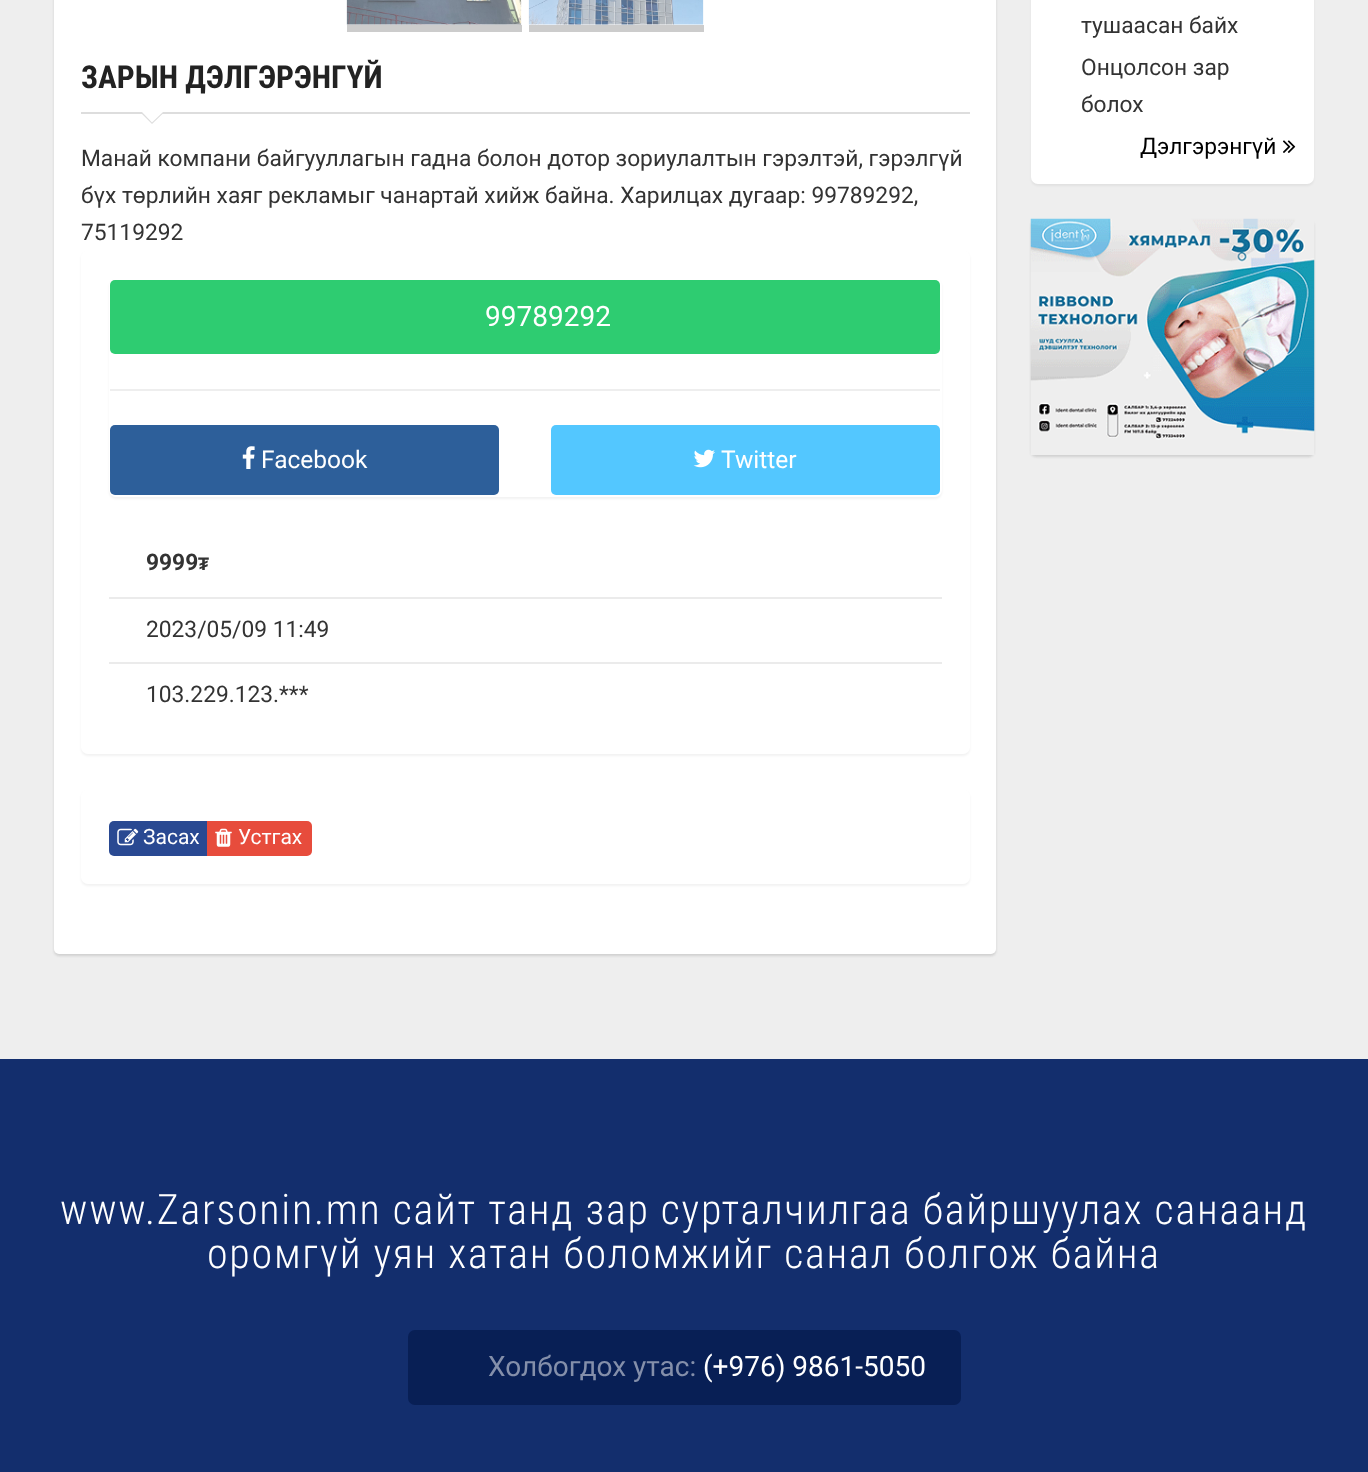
async function draw(canvas) {
  canvas.width = 1368;
  canvas.height = 1472;
  const ctx = canvas.getContext('2d');
  ctx.miterLimit = 4;
  ctx.fontKerning = 'normal';
  function label(s, x, y, font, color) {
    ctx.font = font;
    ctx.fillStyle = color;
    ctx.fillText(s, x, y);
  }
  function rect(x, y, w, h, color) {
    ctx.fillStyle = color;
    ctx.fillRect(x, y, w, h);
  }
  function roundedRect(x, y, w, h, r, color) {
    ctx.fillStyle = color;
    ctx.beginPath();
    ctx.roundRect(x, y, w, h, r);
    ctx.fill();
  }
  async function image(src, x, y, w, h) {
    const img = new Image();
    img.src = src;
    await img.decode();
    ctx.drawImage(img, x, y, w, h);
  }
  let path;

  rect(0, 0, 1368, 1472, '#eee');
  ctx.fillStyle = '#b4b4b480';
  ctx.filter = 'blur(1px)';
  ctx.beginPath();
  ctx.roundRect(54, -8, 942, 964, 5);
  ctx.fill();
  ctx.filter = 'none';
  roundedRect(54, -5, 942, 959, 5, '#fff');
  rect(347, 25, 175, 7, '#ccc');
  await image('assets/img1.png', 346, 0, 176, 25);
  rect(529, 25, 175, 7, '#ccc');
  await image('assets/img2.png', 528, 0, 176, 25);
  rect(81, 112, 889, 2, '#ddd');
  label('ЗАРЫН ДЭЛГЭРЭНГҮЙ', 81, 88, 'bold 31.5px Roboto Condensed', '#222');
  ctx.fillStyle = '#ddd';
  path = new Path2D('M140 112H164.5L152 124Z');
  ctx.fill(path);
  ctx.fillStyle = '#fff';
  path = new Path2D('M142 112H163L152 122.5Z');
  ctx.fill(path);
  label('Манай компани байгууллагын гадна болон дотор зориулалтын гэрэлтэй, гэрэлгүй', 81, 166, '22.75px Roboto', '#333');
  label('бүх төрлийн хаяг рекламыг чанартай хийж байна. Харилцах дугаар: 99789292,', 81, 203, '22.75px Roboto', '#333');
  label('75119292', 81, 240, '22.75px Roboto', '#333');
  ctx.fillStyle = '#0000000d';
  ctx.filter = 'blur(1px)';
  ctx.beginPath();
  ctx.roundRect(81, 252, 889, 504, 7);
  ctx.fill();
  ctx.filter = 'none';
  roundedRect(81, 250, 889, 504, 7, '#fff');
  ctx.fillStyle = '#0000000d';
  ctx.filter = 'blur(1px)';
  ctx.beginPath();
  ctx.roundRect(109, 280, 833, 219, 7);
  ctx.fill();
  ctx.filter = 'none';
  roundedRect(109, 278, 833, 219, 7, '#fff');
  roundedRect(110, 280, 830, 74, 5, '#2ecc71');
  label('99789292', 485, 326, '28px Roboto', '#fff');
  rect(110, 389, 830, 2, '#eee');
  roundedRect(110, 425, 389, 70, 5, '#2d5f9a');
  await image('assets/img3.png', 242, 446, 13, 23);
  label('Facebook', 261, 468, '24.5px Roboto', '#fff');
  roundedRect(551, 425, 389, 70, 5, '#53c7ff');
  await image('assets/img4.png', 693, 449, 22, 19);
  label('Twitter', 721, 468, '24.5px Roboto', '#fff');
  label('9999', 146, 570, 'bold 22.75px Roboto', '#333');
  label('₮', 198, 570, 'bold 18px Liberation Sans', '#333');
  rect(109, 597, 833, 2, '#ebebeb');
  label('2023/05/09 11:49', 146, 637, '22.75px Roboto', '#333');
  rect(109, 662, 833, 2, '#ebebeb');
  label('103.229.123.***', 146, 702, '22.75px Roboto', '#333');
  ctx.fillStyle = '#0000000d';
  ctx.filter = 'blur(1px)';
  ctx.beginPath();
  ctx.roundRect(81, 791, 889, 95, 7);
  ctx.fill();
  ctx.filter = 'none';
  roundedRect(81, 789, 889, 95, 7, '#fff');
  ctx.fillStyle = '#294992';
  ctx.beginPath();
  ctx.roundRect(109, 821, 99, 35, [5, 0, 0, 5]);
  ctx.fill();
  await image('assets/img5.png', 117, 828, 22, 18);
  label('Засах', 143, 844, '21px Roboto', '#fff');
  ctx.fillStyle = '#e74c3c';
  ctx.beginPath();
  ctx.roundRect(207, 821, 105, 35, [0, 5, 5, 0]);
  ctx.fill();
  await image('assets/img6.png', 215, 828, 17, 19);
  label('Устгах', 238, 844, '21px Roboto', '#fff');
  ctx.fillStyle = '#0000000d';
  ctx.filter = 'blur(1px)';
  ctx.beginPath();
  ctx.roundRect(1031, -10, 283, 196, 7);
  ctx.fill();
  ctx.filter = 'none';
  roundedRect(1031, -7, 283, 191, 7, '#fff');
  label('тушаасан байх', 1081, 33, '22.75px Roboto', '#333');
  label('Онцолсон зар', 1081, 75, '22.75px Roboto', '#333');
  label('болох', 1081, 112, '22.75px Roboto', '#333');
  label('Дэлгэрэнгүй', 1140, 154, '22.75px Roboto', '#000');
  await image('assets/img7.png', 1283, 140, 13, 13);
  ctx.fillStyle = '#b4b4b480';
  ctx.filter = 'blur(1px)';
  ctx.beginPath();
  ctx.roundRect(1031, 221, 283, 236, 5);
  ctx.fill();
  ctx.filter = 'none';
  await image('assets/img8.png', 1030, 218, 285, 237);
  rect(0, 1059, 1368, 413, '#132e6d');
  ctx.letterSpacing = '1.75px';
  label('www.Zarsonin.mn сайт танд зар сурталчилгаа байршуулах санаанд', 60, 1224, '300 42px Roboto Condensed', '#fff');
  label('оромгүй уян хатан боломжийг санал болгож байна', 207, 1268, '300 42px Roboto Condensed', '#fff');
  roundedRect(408, 1330, 553, 75, 7, '#081f55');
  ctx.letterSpacing = '0px';
  label('Холбогдох утас:', 488, 1376, '28px Roboto', '#848faa');
  label('(+976) 9861-5050', 703, 1376, '28px Roboto', '#fff');
}

draw(document.querySelector('canvas'));
